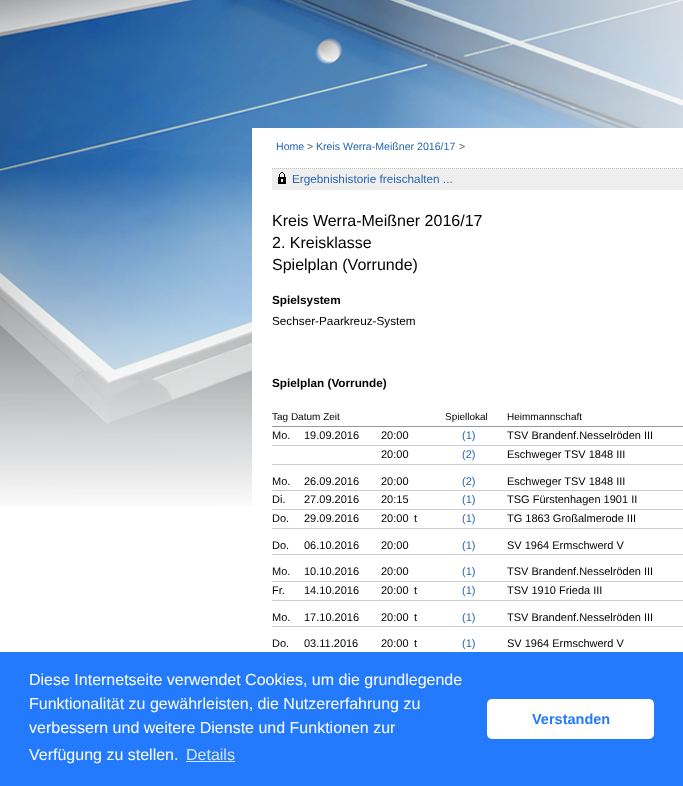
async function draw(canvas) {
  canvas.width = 683;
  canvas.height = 786;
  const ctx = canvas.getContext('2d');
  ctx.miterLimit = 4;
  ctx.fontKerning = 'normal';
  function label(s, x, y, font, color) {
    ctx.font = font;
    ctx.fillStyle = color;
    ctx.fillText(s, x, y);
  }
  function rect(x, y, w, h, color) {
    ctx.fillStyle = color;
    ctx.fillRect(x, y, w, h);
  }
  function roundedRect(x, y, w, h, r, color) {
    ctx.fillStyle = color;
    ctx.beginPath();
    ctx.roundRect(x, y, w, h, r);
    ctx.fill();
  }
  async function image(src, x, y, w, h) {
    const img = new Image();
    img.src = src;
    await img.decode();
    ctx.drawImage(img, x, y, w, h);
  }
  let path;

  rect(0, 0, 683, 786, '#fff');
  await image('assets/img1.png', 0, 0, 683, 506);
  rect(252, 128, 431, 19, '#fff');
  label('Home', 276, 150, '10.6px Liberation Sans', '#2866af');
  label('>', 307, 150, '10.6px Liberation Sans', '#555');
  label('Kreis Werra-Meißner 2016/17', 316, 150, '10.6px Liberation Sans', '#2866af');
  label('>', 459, 150, '10.6px Liberation Sans', '#555');
  rect(272, 168, 411, 22, '#efefef');
  path = new Path2D('M272 168.5H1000');
  ctx.strokeStyle = '#c5c4b9';
  ctx.setLineDash([1, 1]);
  ctx.stroke(path);
  await image('assets/img2.png', 278, 172, 8, 12);
  label('Ergebnishistorie freischalten ...', 292, 183, '11.75px Liberation Sans', '#2866af');
  label('Kreis Werra-Meißner 2016/17', 272, 226, '16px Liberation Sans', '#000');
  label('2. Kreisklasse', 272, 248, '16px Liberation Sans', '#000');
  label('Spielplan (Vorrunde)', 272, 270, '16px Liberation Sans', '#000');
  label('Spielsystem', 272, 304, 'bold 11.75px Liberation Sans', '#000');
  label('Sechser-Paarkreuz-System', 272, 325, '11.75px Liberation Sans', '#000');
  label('Spielplan (Vorrunde)', 272, 387, 'bold 11.75px Liberation Sans', '#000');
  rect(272, 426, 411, 1, '#999');
  label('Tag Datum Zeit', 272, 420, '10px Liberation Sans', '#000');
  label('Spiellokal', 445, 420, '10px Liberation Sans', '#000');
  label('Heimmannschaft', 507, 420, '10px Liberation Sans', '#000');
  rect(272, 445, 411, 1, '#ccc');
  label('Mo.', 272, 439, '11px Liberation Sans', '#000');
  label('19.09.2016', 304, 439, '11px Liberation Sans', '#000');
  label('20:00', 381, 439, '11px Liberation Sans', '#000');
  label('(1)', 462, 439, '11px Liberation Sans', '#2866af');
  label('TSV Brandenf.Nesselröden III', 507, 439, '11px Liberation Sans', '#000');
  label('20:00', 381, 458, '11px Liberation Sans', '#000');
  label('(2)', 462, 458, '11px Liberation Sans', '#2866af');
  label('Eschweger TSV 1848 III', 507, 458, '11px Liberation Sans', '#000');
  rect(272, 464, 411, 1, '#ccc');
  rect(272, 490, 411, 1, '#ccc');
  label('Mo.', 272, 485, '11px Liberation Sans', '#000');
  label('26.09.2016', 304, 485, '11px Liberation Sans', '#000');
  label('20:00', 381, 485, '11px Liberation Sans', '#000');
  label('(2)', 462, 485, '11px Liberation Sans', '#2866af');
  label('Eschweger TSV 1848 III', 507, 485, '11px Liberation Sans', '#000');
  rect(272, 509, 411, 1, '#ccc');
  label('Di.', 272, 503, '11px Liberation Sans', '#000');
  label('27.09.2016', 304, 503, '11px Liberation Sans', '#000');
  label('20:15', 381, 503, '11px Liberation Sans', '#000');
  label('(1)', 462, 503, '11px Liberation Sans', '#2866af');
  label('TSG Fürstenhagen 1901 II', 507, 503, '11px Liberation Sans', '#000');
  rect(272, 528, 411, 1, '#ccc');
  label('Do.', 272, 522, '11px Liberation Sans', '#000');
  label('29.09.2016', 304, 522, '11px Liberation Sans', '#000');
  label('20:00', 381, 522, '11px Liberation Sans', '#000');
  label('t', 414, 522, '11px Liberation Sans', '#000');
  label('(1)', 462, 522, '11px Liberation Sans', '#2866af');
  label('TG 1863 Großalmerode III', 507, 522, '11px Liberation Sans', '#000');
  rect(272, 554, 411, 1, '#ccc');
  label('Do.', 272, 549, '11px Liberation Sans', '#000');
  label('06.10.2016', 304, 549, '11px Liberation Sans', '#000');
  label('20:00', 381, 549, '11px Liberation Sans', '#000');
  label('(1)', 462, 549, '11px Liberation Sans', '#2866af');
  label('SV 1964 Ermschwerd V', 507, 549, '11px Liberation Sans', '#000');
  rect(272, 581, 411, 1, '#ccc');
  label('Mo.', 272, 575, '11px Liberation Sans', '#000');
  label('10.10.2016', 304, 575, '11px Liberation Sans', '#000');
  label('20:00', 381, 575, '11px Liberation Sans', '#000');
  label('(1)', 462, 575, '11px Liberation Sans', '#2866af');
  label('TSV Brandenf.Nesselröden III', 507, 575, '11px Liberation Sans', '#000');
  rect(272, 600, 411, 1, '#ccc');
  label('Fr.', 272, 594, '11px Liberation Sans', '#000');
  label('14.10.2016', 304, 594, '11px Liberation Sans', '#000');
  label('20:00', 381, 594, '11px Liberation Sans', '#000');
  label('t', 414, 594, '11px Liberation Sans', '#000');
  label('(1)', 462, 594, '11px Liberation Sans', '#2866af');
  label('TSV 1910 Frieda III', 507, 594, '11px Liberation Sans', '#000');
  rect(272, 626, 411, 1, '#ccc');
  label('Mo.', 272, 621, '11px Liberation Sans', '#000');
  label('17.10.2016', 304, 621, '11px Liberation Sans', '#000');
  label('20:00', 381, 621, '11px Liberation Sans', '#000');
  label('t', 414, 621, '11px Liberation Sans', '#000');
  label('(1)', 462, 621, '11px Liberation Sans', '#2866af');
  label('TSV Brandenf.Nesselröden III', 507, 621, '11px Liberation Sans', '#000');
  label('Do.', 272, 647, '11px Liberation Sans', '#000');
  label('03.11.2016', 304, 647, '11px Liberation Sans', '#000');
  label('20:00', 381, 647, '11px Liberation Sans', '#000');
  label('t', 414, 647, '11px Liberation Sans', '#000');
  label('(1)', 462, 647, '11px Liberation Sans', '#2866af');
  label('SV 1964 Ermschwerd V', 507, 647, '11px Liberation Sans', '#000');
  rect(0, 652, 683, 134, '#237afc');
  label('Diese Internetseite verwendet Cookies, um die grundlegende', 29, 685, '16px Liberation Sans', '#fff');
  label('Funktionalität zu gewährleisten, die Nutzererfahrung zu', 29, 709, '16px Liberation Sans', '#fff');
  label('verbessern und weitere Dienste und Funktionen zur', 29, 733, '16px Liberation Sans', '#fff');
  label('Verfügung zu stellen.', 29, 760, '16px Liberation Sans', '#fff');
  label('Details', 186, 760, '16px Liberation Sans', '#d3e4fe');
  rect(186, 761, 49, 1, '#d3e4fe');
  roundedRect(487, 699, 167, 40, 5, '#fff');
  label('Verstanden', 532, 724, 'bold 14.5px Liberation Sans', '#237afc');
}

draw(document.querySelector('canvas'));
